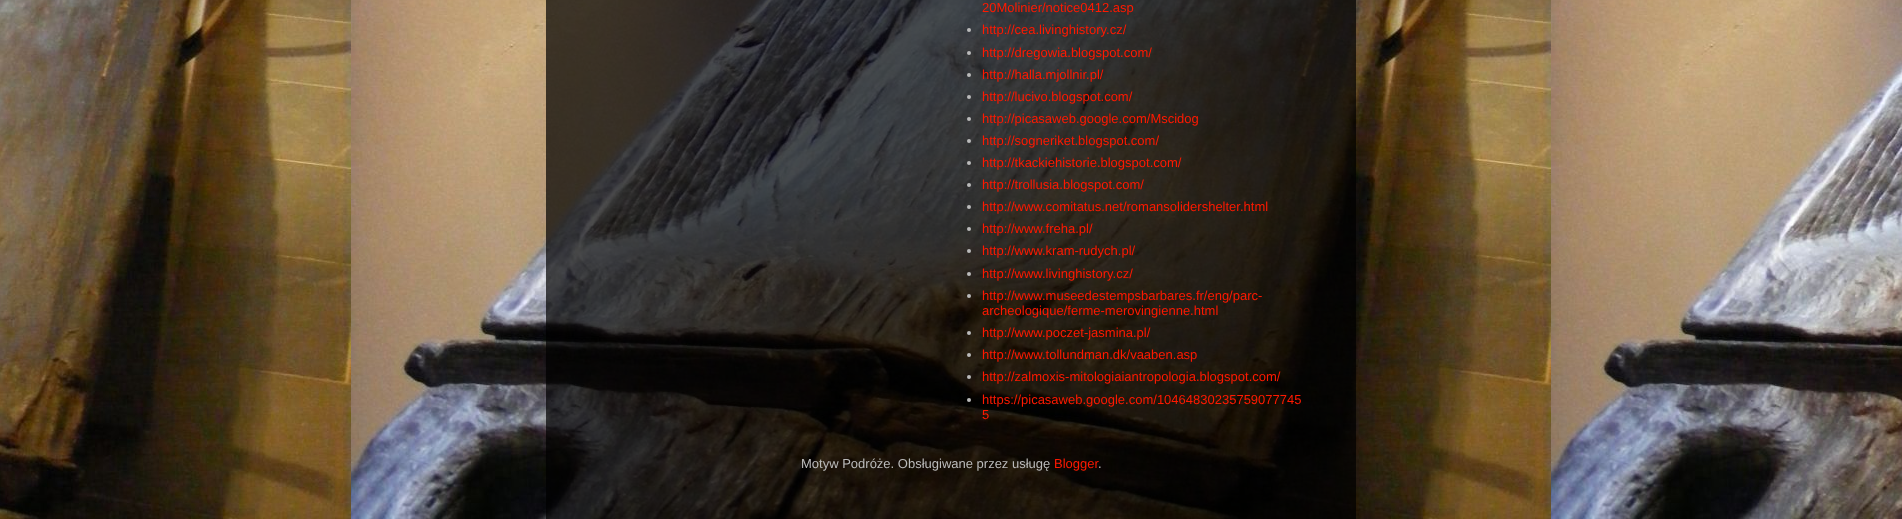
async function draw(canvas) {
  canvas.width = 1902;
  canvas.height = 519;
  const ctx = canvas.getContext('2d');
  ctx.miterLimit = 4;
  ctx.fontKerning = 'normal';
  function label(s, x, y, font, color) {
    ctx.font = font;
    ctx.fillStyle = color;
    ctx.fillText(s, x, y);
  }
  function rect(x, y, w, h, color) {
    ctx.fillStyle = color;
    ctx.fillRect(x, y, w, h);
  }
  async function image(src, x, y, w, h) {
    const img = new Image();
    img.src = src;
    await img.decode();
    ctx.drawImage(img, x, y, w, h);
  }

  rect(0, 0, 1902, 519, '#fff');
  await image('assets/img1.png', 0, 0, 1902, 519);
  rect(546, 0, 810, 519, '#000000b3');
  label('20Molinier/notice0412.asp', 982, 12, '13px Liberation Sans', '#ff1900');
  ctx.fillStyle = '#bbb';
  ctx.beginPath();
  ctx.arc(969, 30, 2, 0, 2 * Math.PI);
  ctx.fill();
  label('http://cea.livinghistory.cz/', 982, 34, '13px Liberation Sans', '#ff1900');
  ctx.fillStyle = '#bbb';
  ctx.beginPath();
  ctx.arc(969, 53, 2, 0, 2 * Math.PI);
  ctx.fill();
  label('http://dregowia.blogspot.com/', 982, 57, '13px Liberation Sans', '#ff1900');
  ctx.fillStyle = '#bbb';
  ctx.beginPath();
  ctx.arc(969, 75, 2, 0, 2 * Math.PI);
  ctx.fill();
  label('http://halla.mjollnir.pl/', 982, 79, '13px Liberation Sans', '#ff1900');
  ctx.fillStyle = '#bbb';
  ctx.beginPath();
  ctx.arc(969, 97, 2, 0, 2 * Math.PI);
  ctx.fill();
  label('http://lucivo.blogspot.com/', 982, 101, '13px Liberation Sans', '#ff1900');
  ctx.fillStyle = '#bbb';
  ctx.beginPath();
  ctx.arc(969, 119, 2, 0, 2 * Math.PI);
  ctx.fill();
  label('http://picasaweb.google.com/Mscidog', 982, 123, '13px Liberation Sans', '#ff1900');
  ctx.fillStyle = '#bbb';
  ctx.beginPath();
  ctx.arc(969, 141, 2, 0, 2 * Math.PI);
  ctx.fill();
  label('http://sogneriket.blogspot.com/', 982, 145, '13px Liberation Sans', '#ff1900');
  ctx.fillStyle = '#bbb';
  ctx.beginPath();
  ctx.arc(969, 163, 2, 0, 2 * Math.PI);
  ctx.fill();
  label('http://tkackiehistorie.blogspot.com/', 982, 167, '13px Liberation Sans', '#ff1900');
  ctx.fillStyle = '#bbb';
  ctx.beginPath();
  ctx.arc(969, 185, 2, 0, 2 * Math.PI);
  ctx.fill();
  label('http://trollusia.blogspot.com/', 982, 189, '13px Liberation Sans', '#ff1900');
  ctx.fillStyle = '#bbb';
  ctx.beginPath();
  ctx.arc(969, 207, 2, 0, 2 * Math.PI);
  ctx.fill();
  label('http://www.comitatus.net/romansolidershelter.html', 982, 211, '13px Liberation Sans', '#ff1900');
  ctx.fillStyle = '#bbb';
  ctx.beginPath();
  ctx.arc(969, 229, 2, 0, 2 * Math.PI);
  ctx.fill();
  label('http://www.freha.pl/', 982, 233, '13px Liberation Sans', '#ff1900');
  ctx.fillStyle = '#bbb';
  ctx.beginPath();
  ctx.arc(969, 251, 2, 0, 2 * Math.PI);
  ctx.fill();
  label('http://www.kram-rudych.pl/', 982, 255, '13px Liberation Sans', '#ff1900');
  ctx.fillStyle = '#bbb';
  ctx.beginPath();
  ctx.arc(969, 274, 2, 0, 2 * Math.PI);
  ctx.fill();
  label('http://www.livinghistory.cz/', 982, 278, '13px Liberation Sans', '#ff1900');
  ctx.fillStyle = '#bbb';
  ctx.beginPath();
  ctx.arc(969, 296, 2, 0, 2 * Math.PI);
  ctx.fill();
  label('http://www.museedestempsbarbares.fr/eng/parc-', 982, 300, '13px Liberation Sans', '#ff1900');
  label('archeologique/ferme-merovingienne.html', 982, 315, '13px Liberation Sans', '#ff1900');
  ctx.fillStyle = '#bbb';
  ctx.beginPath();
  ctx.arc(969, 333, 2, 0, 2 * Math.PI);
  ctx.fill();
  label('http://www.poczet-jasmina.pl/', 982, 337, '13px Liberation Sans', '#ff1900');
  ctx.fillStyle = '#bbb';
  ctx.beginPath();
  ctx.arc(969, 355, 2, 0, 2 * Math.PI);
  ctx.fill();
  label('http://www.tollundman.dk/vaaben.asp', 982, 359, '13px Liberation Sans', '#ff1900');
  ctx.fillStyle = '#bbb';
  ctx.beginPath();
  ctx.arc(969, 377, 2, 0, 2 * Math.PI);
  ctx.fill();
  label('http://zalmoxis-mitologiaiantropologia.blogspot.com/', 982, 381, '13px Liberation Sans', '#ff1900');
  ctx.fillStyle = '#bbb';
  ctx.beginPath();
  ctx.arc(969, 400, 2, 0, 2 * Math.PI);
  ctx.fill();
  label('https://picasaweb.google.com/10464830235759077745', 982, 404, '13px Liberation Sans', '#ff1900');
  label('5', 982, 419, '13px Liberation Sans', '#ff1900');
  label('Motyw Podróże. Obsługiwane przez usługę', 801, 468, '13px Liberation Sans', '#bbb');
  label('Blogger', 1054, 468, '13px Liberation Sans', '#ff1900');
  label('.', 1098, 468, '13px Liberation Sans', '#bbb');
}

draw(document.querySelector('canvas'));
